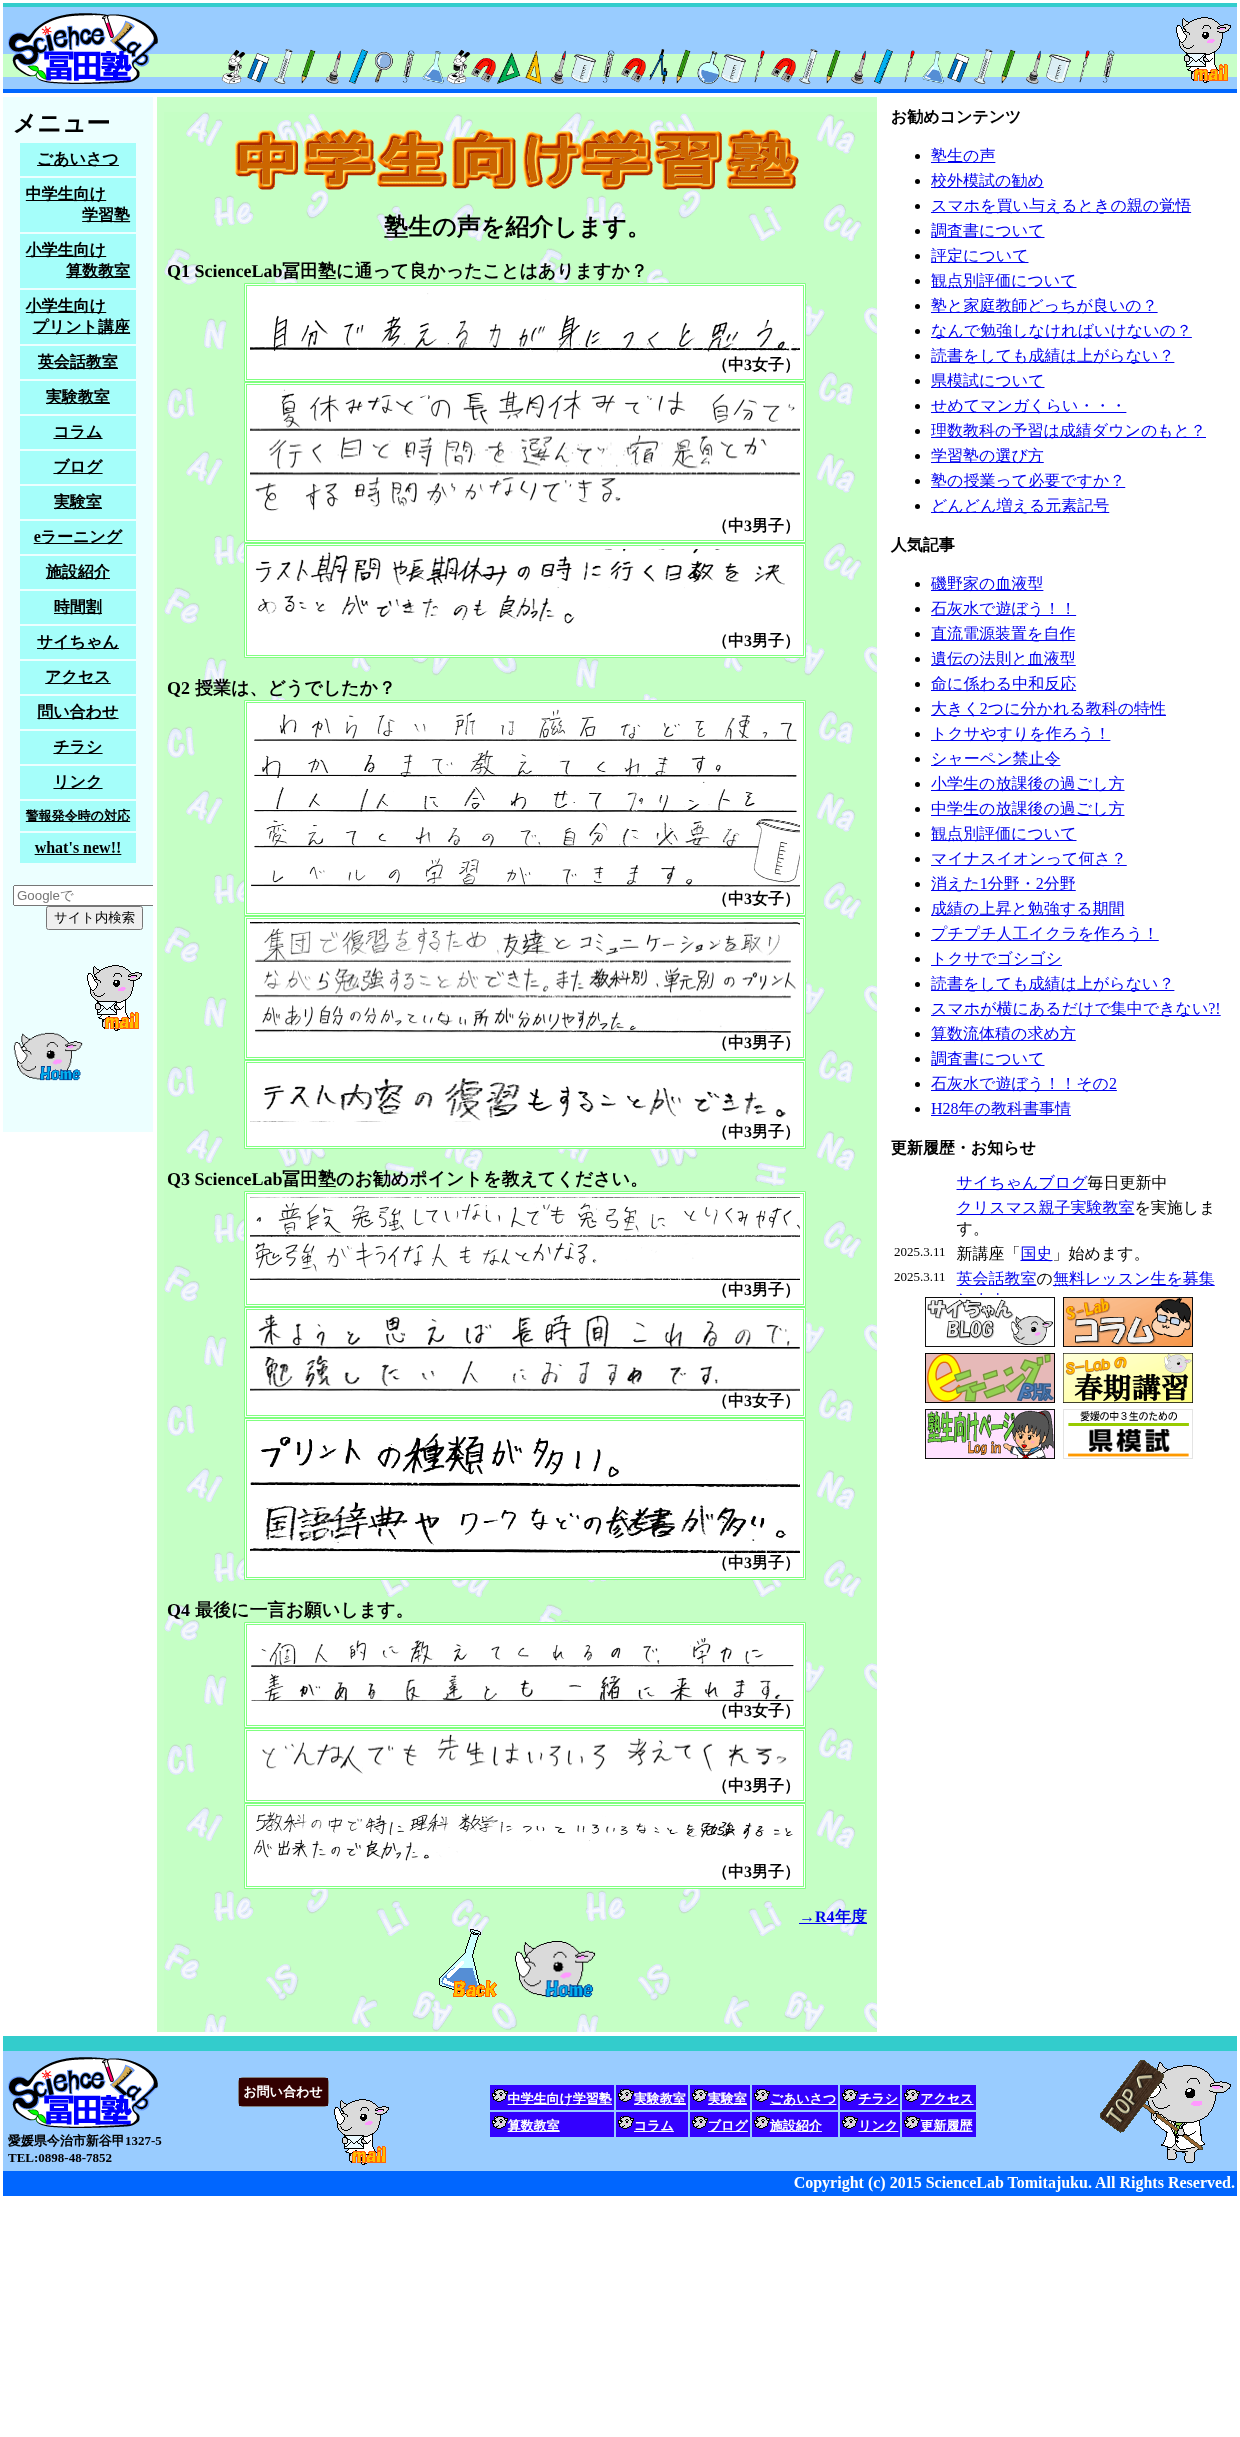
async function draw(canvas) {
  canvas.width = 1240;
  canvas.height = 2437;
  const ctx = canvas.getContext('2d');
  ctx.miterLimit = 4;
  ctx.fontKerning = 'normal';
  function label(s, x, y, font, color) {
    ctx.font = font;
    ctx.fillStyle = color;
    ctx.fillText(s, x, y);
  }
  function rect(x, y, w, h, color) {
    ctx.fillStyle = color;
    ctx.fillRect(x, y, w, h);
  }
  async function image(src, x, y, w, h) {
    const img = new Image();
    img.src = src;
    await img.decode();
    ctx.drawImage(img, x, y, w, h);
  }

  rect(0, 0, 1240, 2437, '#fff');
  await image('assets/img1.png', 3, 3, 1234, 90);
  await image('assets/img2.png', 3, 97, 150, 1035);
  rect(157, 97, 720, 1935, '#c8ffc8');
  await image('assets/img3.png', 164, 112, 713, 1920);
  await image('assets/img4.png', 235, 129, 564, 61);
  label('塾生の声を紹介します。', 384, 235, 'bold 24px WenQuanYi Zen Hei', '#000');
  label('Q1 ScienceLab', 167, 277, 'bold 18px Liberation Serif', '#000');
  label('冨田塾に通って良かったことはありますか？', 282, 277, 'bold 18px WenQuanYi Zen Hei', '#000');
  ctx.fillStyle = '#fff';
  ctx.beginPath();
  ctx.rect(244.5, 283.5, 561, 98);
  ctx.fill();
  ctx.strokeStyle = '#80ff80';
  ctx.stroke();
  ctx.strokeRect(246.5, 285.5, 557, 94);
  await image('assets/img5.png', 250, 289, 550, 64);
  label('（中', 712, 370, 'bold 16px WenQuanYi Zen Hei', '#000');
  label('3', 744, 370, 'bold 16px Liberation Serif', '#000');
  label('女子）', 752, 370, 'bold 16px WenQuanYi Zen Hei', '#000');
  ctx.fillStyle = '#fff';
  ctx.beginPath();
  ctx.rect(244.5, 382.5, 561, 160);
  ctx.fill();
  ctx.stroke();
  ctx.strokeRect(246.5, 384.5, 557, 156);
  await image('assets/img6.png', 250, 389, 550, 122);
  label('（中', 712, 531, 'bold 16px WenQuanYi Zen Hei', '#000');
  label('3', 744, 531, 'bold 16px Liberation Serif', '#000');
  label('男子）', 752, 531, 'bold 16px WenQuanYi Zen Hei', '#000');
  ctx.fillStyle = '#fff';
  ctx.beginPath();
  ctx.rect(244.5, 543.5, 561, 114);
  ctx.fill();
  ctx.stroke();
  ctx.strokeRect(246.5, 545.5, 557, 110);
  await image('assets/img7.png', 255, 549, 530, 75);
  label('（中', 712, 646, 'bold 16px WenQuanYi Zen Hei', '#000');
  label('3', 744, 646, 'bold 16px Liberation Serif', '#000');
  label('男子）', 752, 646, 'bold 16px WenQuanYi Zen Hei', '#000');
  label('Q2', 167, 694, 'bold 18px Liberation Serif', '#000');
  label('授業は、どうでしたか？', 195, 694, 'bold 18px WenQuanYi Zen Hei', '#000');
  ctx.fillStyle = '#fff';
  ctx.beginPath();
  ctx.rect(244.5, 700.5, 561, 215);
  ctx.fill();
  ctx.stroke();
  ctx.strokeRect(246.5, 702.5, 557, 211);
  await image('assets/img8.png', 251, 709, 549, 178);
  label('（中', 712, 904, 'bold 16px WenQuanYi Zen Hei', '#000');
  label('3', 744, 904, 'bold 16px Liberation Serif', '#000');
  label('女子）', 752, 904, 'bold 16px WenQuanYi Zen Hei', '#000');
  ctx.fillStyle = '#fff';
  ctx.beginPath();
  ctx.rect(244.5, 916.5, 561, 143);
  ctx.fill();
  ctx.stroke();
  ctx.strokeRect(246.5, 918.5, 557, 139);
  await image('assets/img9.png', 250, 922, 550, 111);
  label('（中', 712, 1048, 'bold 16px WenQuanYi Zen Hei', '#000');
  label('3', 744, 1048, 'bold 16px Liberation Serif', '#000');
  label('男子）', 752, 1048, 'bold 16px WenQuanYi Zen Hei', '#000');
  ctx.fillStyle = '#fff';
  ctx.beginPath();
  ctx.rect(244.5, 1060.5, 561, 88);
  ctx.fill();
  ctx.stroke();
  ctx.strokeRect(246.5, 1062.5, 557, 84);
  await image('assets/img10.png', 250, 1078, 536, 44);
  label('（中', 712, 1137, 'bold 16px WenQuanYi Zen Hei', '#000');
  label('3', 744, 1137, 'bold 16px Liberation Serif', '#000');
  label('男子）', 752, 1137, 'bold 16px WenQuanYi Zen Hei', '#000');
  label('Q3 ScienceLab', 167, 1185, 'bold 18px Liberation Serif', '#000');
  label('冨田塾のお勧めポイントを教えてください。', 282, 1185, 'bold 18px WenQuanYi Zen Hei', '#000');
  ctx.fillStyle = '#fff';
  ctx.beginPath();
  ctx.rect(244.5, 1191.5, 561, 115);
  ctx.fill();
  ctx.stroke();
  ctx.strokeRect(246.5, 1193.5, 557, 111);
  await image('assets/img11.png', 250, 1197, 550, 83);
  label('（中', 712, 1295, 'bold 16px WenQuanYi Zen Hei', '#000');
  label('3', 744, 1295, 'bold 16px Liberation Serif', '#000');
  label('男子）', 752, 1295, 'bold 16px WenQuanYi Zen Hei', '#000');
  ctx.fillStyle = '#fff';
  ctx.beginPath();
  ctx.rect(244.5, 1307.5, 561, 110);
  ctx.fill();
  ctx.stroke();
  ctx.strokeRect(246.5, 1309.5, 557, 106);
  await image('assets/img12.png', 250, 1314, 550, 77);
  label('（中', 712, 1406, 'bold 16px WenQuanYi Zen Hei', '#000');
  label('3', 744, 1406, 'bold 16px Liberation Serif', '#000');
  label('女子）', 752, 1406, 'bold 16px WenQuanYi Zen Hei', '#000');
  ctx.fillStyle = '#fff';
  ctx.beginPath();
  ctx.rect(244.5, 1418.5, 561, 161);
  ctx.fill();
  ctx.stroke();
  ctx.strokeRect(246.5, 1420.5, 557, 157);
  await image('assets/img13.png', 250, 1433, 550, 120);
  label('（中', 712, 1568, 'bold 16px WenQuanYi Zen Hei', '#000');
  label('3', 744, 1568, 'bold 16px Liberation Serif', '#000');
  label('男子）', 752, 1568, 'bold 16px WenQuanYi Zen Hei', '#000');
  label('Q4', 167, 1616, 'bold 18px Liberation Serif', '#000');
  label('最後に一言お願いします。', 195, 1616, 'bold 18px WenQuanYi Zen Hei', '#000');
  ctx.fillStyle = '#fff';
  ctx.beginPath();
  ctx.rect(244.5, 1622.5, 561, 105);
  ctx.fill();
  ctx.stroke();
  ctx.strokeRect(246.5, 1624.5, 557, 101);
  await image('assets/img14.png', 251, 1638, 543, 63);
  label('（中', 712, 1716, 'bold 16px WenQuanYi Zen Hei', '#000');
  label('3', 744, 1716, 'bold 16px Liberation Serif', '#000');
  label('女子）', 752, 1716, 'bold 16px WenQuanYi Zen Hei', '#000');
  ctx.fillStyle = '#fff';
  ctx.beginPath();
  ctx.rect(244.5, 1728.5, 561, 74);
  ctx.fill();
  ctx.stroke();
  ctx.strokeRect(246.5, 1730.5, 557, 70);
  await image('assets/img15.png', 262, 1734, 525, 40);
  label('（中', 712, 1791, 'bold 16px WenQuanYi Zen Hei', '#000');
  label('3', 744, 1791, 'bold 16px Liberation Serif', '#000');
  label('男子）', 752, 1791, 'bold 16px WenQuanYi Zen Hei', '#000');
  ctx.fillStyle = '#fff';
  ctx.beginPath();
  ctx.rect(244.5, 1803.5, 561, 85);
  ctx.fill();
  ctx.stroke();
  ctx.strokeRect(246.5, 1805.5, 557, 81);
  await image('assets/img16.png', 253, 1812, 540, 49);
  label('（中', 712, 1877, 'bold 16px WenQuanYi Zen Hei', '#000');
  label('3', 744, 1877, 'bold 16px Liberation Serif', '#000');
  label('男子）', 752, 1877, 'bold 16px WenQuanYi Zen Hei', '#000');
  label('→R4', 799, 1922, 'bold 16px Liberation Serif', '#00e');
  rect(799, 1923, 68, 1, '#00e');
  label('年度', 835, 1922, 'bold 16px WenQuanYi Zen Hei', '#00e');
  await image('assets/img17.png', 439, 1929, 58, 68);
  await image('assets/img18.png', 515, 1941, 81, 57);
  await image('assets/img19.png', 890, 108, 331, 1351);
  await image('assets/img20.png', 3, 2036, 1234, 160);
}

draw(document.querySelector('canvas'));
